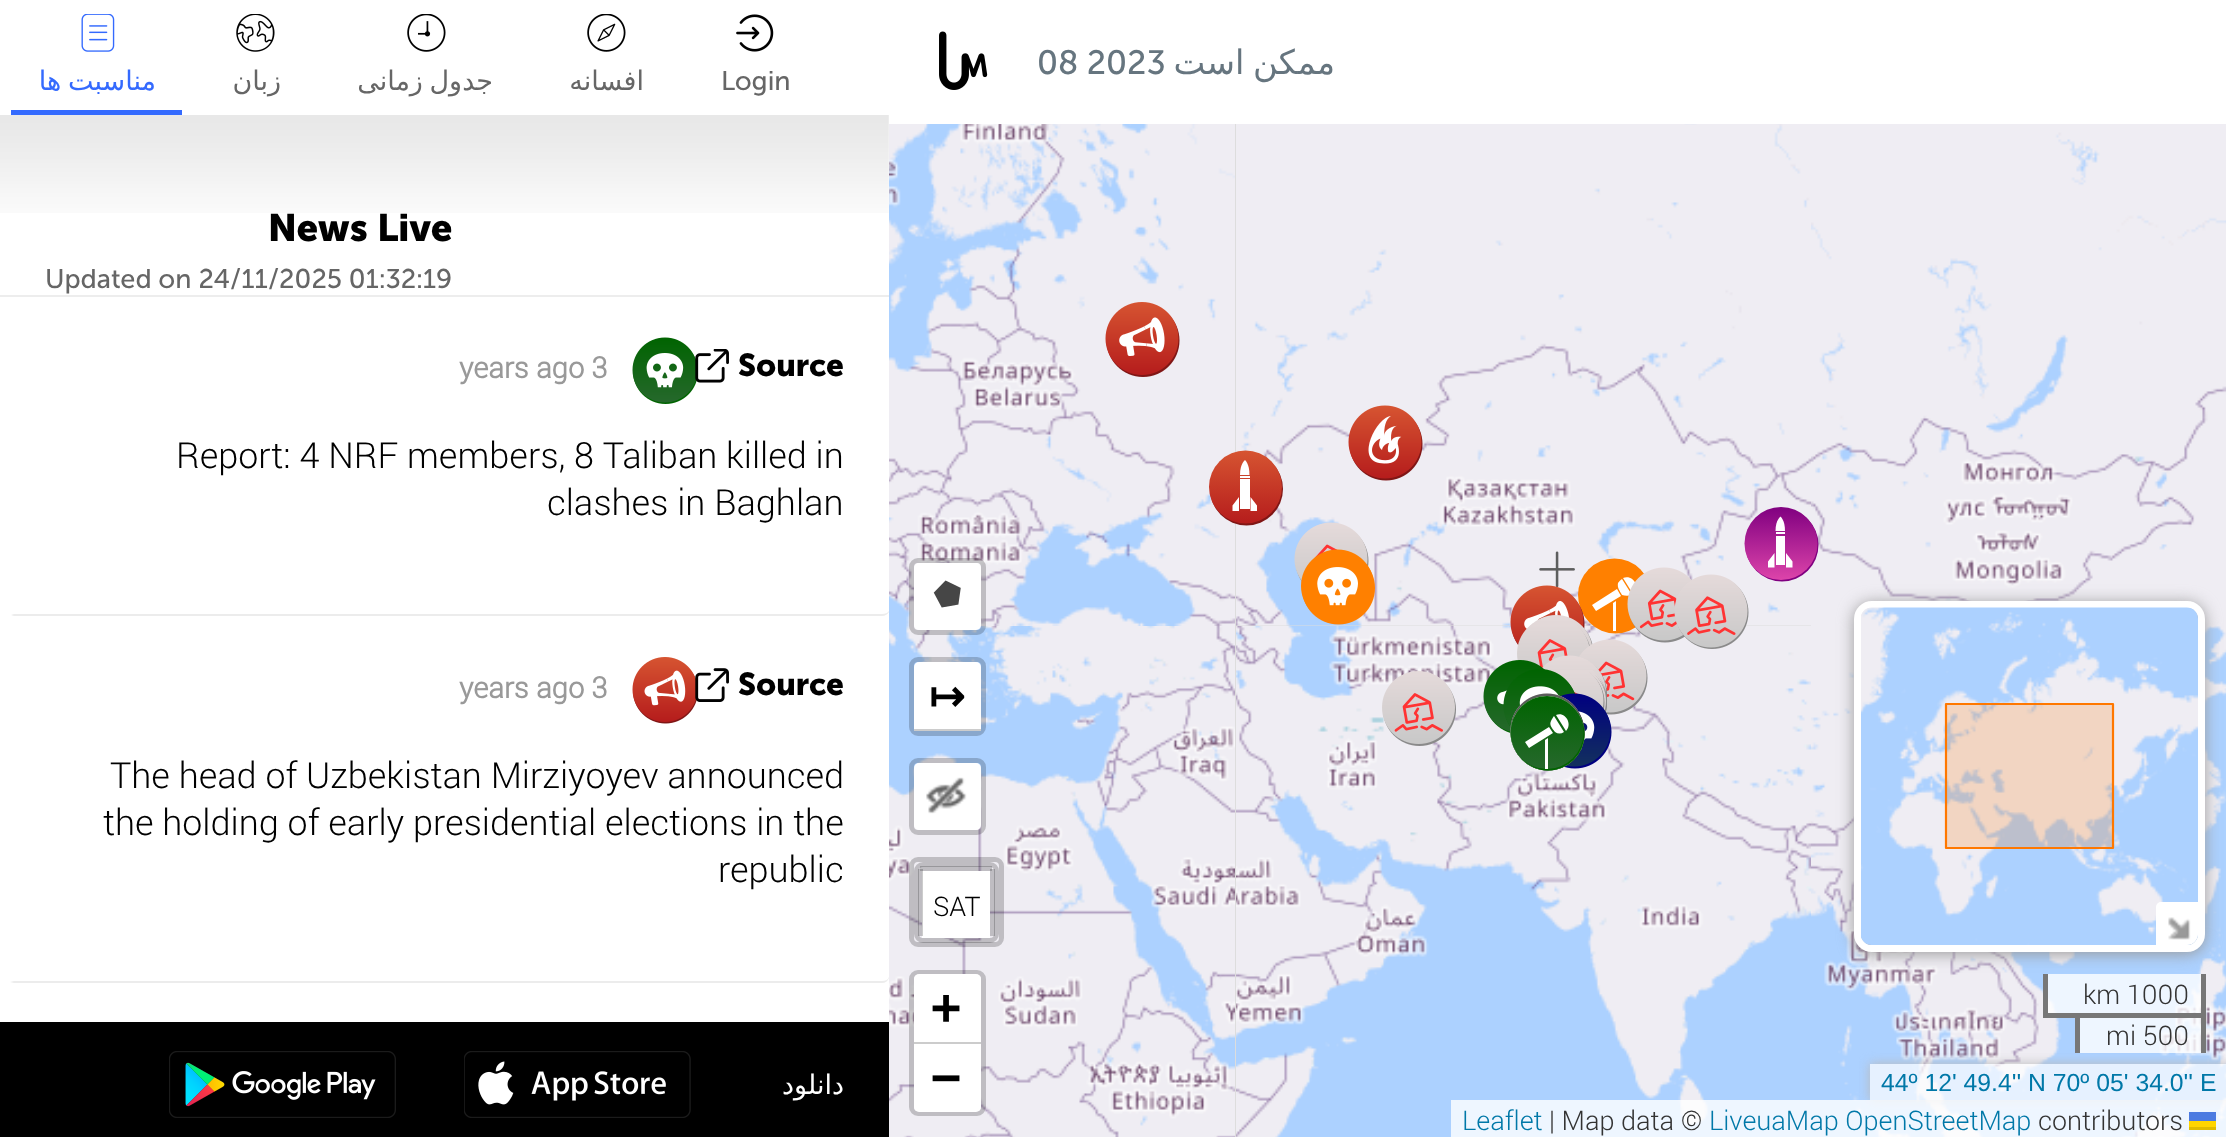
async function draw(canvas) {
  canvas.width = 2226;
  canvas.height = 1137;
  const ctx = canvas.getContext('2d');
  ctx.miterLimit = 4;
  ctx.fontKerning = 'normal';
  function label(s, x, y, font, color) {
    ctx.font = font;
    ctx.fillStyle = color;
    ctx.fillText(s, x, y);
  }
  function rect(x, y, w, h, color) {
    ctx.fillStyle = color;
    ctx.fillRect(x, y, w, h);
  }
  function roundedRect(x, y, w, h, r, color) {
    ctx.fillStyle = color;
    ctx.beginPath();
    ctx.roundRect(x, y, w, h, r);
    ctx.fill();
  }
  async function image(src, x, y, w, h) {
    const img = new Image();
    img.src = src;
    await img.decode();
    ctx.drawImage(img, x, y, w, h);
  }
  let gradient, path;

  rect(0, 0, 2226, 1137, '#ddd');
  rect(889, 0, 1337, 124, '#fff');
  await image('assets/img1.png', 939, 31, 49, 59);
  label('08 2023', 1037, 74, '33.75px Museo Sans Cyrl', '#66757f');
  ctx.wordSpacing = '-2px';
  ctx.direction = 'rtl';
  label('ممکن است', 1335, 74, '33.75px DejaVu Sans', '#66757f');
  rect(0, 0, 889, 1022, '#fff');
  rect(11, 110, 171, 5, '#346afe');
  await image('assets/img2.png', 81, 14, 34, 38);
  label('مناسبت ها', 156, 90, '27px DejaVu Sans', '#346afe');
  await image('assets/img3.png', 236, 14, 39, 38);
  ctx.wordSpacing = '0px';
  label('زبان', 281, 90, '27px DejaVu Sans', '#666');
  await image('assets/img4.png', 407, 14, 39, 38);
  ctx.wordSpacing = '-2px';
  label('جدول زمانی', 493, 90, '27px DejaVu Sans', '#666');
  await image('assets/img5.png', 587, 14, 39, 38);
  ctx.wordSpacing = '0px';
  label('افسانه', 644, 90, '27px DejaVu Sans', '#666');
  await image('assets/img6.png', 736, 14, 38, 38);
  ctx.direction = 'ltr';
  label('Login', 721, 90, '27px Museo Sans Cyrl', '#666');
  await image('assets/img7.png', 0, 115, 889, 98);
  rect(0, 295, 889, 2, '#ededed');
  label('News Live', 268, 241, 'bold 38.25px Museo Sans Cyrl', '#000');
  label('Updated on 24/11/2025 01:32:19', 45, 288, '27px Museo Sans Cyrl', '#666');
  ctx.fillStyle = '#ececec';
  path = new Path2D('M889 612C888 614 885 616 882 616H14L11 615L14 614H882C885 614 888 613 889 611Z');
  ctx.fill(path);
  label('years ago 3', 459, 378, 'bold 29.25px Roboto', '#999');
  await image('assets/img8.png', 632, 337, 65, 67);
  await image('assets/img9.png', 695, 349, 34, 34);
  label('Source', 738, 376, 'bold 31.5px Museo Sans Cyrl', '#000');
  label('Report: 4 NRF members, 8 Taliban killed in', 176, 468, '300 36px Roboto', '#000');
  label('clashes in Baghlan', 547, 515, '300 36px Roboto', '#000');
  ctx.fillStyle = '#ececec';
  path = new Path2D('M889 978C888 981 885 983 882 983H14L10 982L14 981H882C885 981 888 980 889 977Z');
  ctx.fill(path);
  label('years ago 3', 459, 698, 'bold 29.25px Roboto', '#999');
  await image('assets/img10.png', 632, 657, 65, 67);
  await image('assets/img11.png', 695, 668, 34, 34);
  label('Source', 738, 695, 'bold 31.5px Museo Sans Cyrl', '#000');
  label('The head of Uzbekistan Mirziyoyev announced', 110, 788, '300 36px Roboto', '#000');
  label('the holding of early presidential elections in the', 103, 835, '300 36px Roboto', '#000');
  label('republic', 718, 882, '300 36px Roboto', '#000');
  rect(0, 1022, 889, 115, '#000');
  await image('assets/img12.png', 169, 1051, 227, 67);
  await image('assets/img13.png', 464, 1051, 227, 67);
  ctx.direction = 'rtl';
  label('دانلود', 844, 1094, '27px DejaVu Sans', '#fff');
  await image('assets/img14.png', 889, 124, 346, 502);
  await image('assets/img15.png', 1236, 124, 575, 502);
  await image('assets/img16.png', 1811, 124, 415, 502);
  await image('assets/img17.png', 889, 626, 346, 511);
  await image('assets/img18.png', 1236, 626, 575, 511);
  await image('assets/img19.png', 1811, 626, 415, 511);
  await image('assets/img20.png', 1105, 302, 75, 75);
  ctx.fillStyle = '#801615';
  ctx.beginPath();
  ctx.arc(1246.5, 489, 36.5, 0, 2 * Math.PI);
  ctx.fill();
  gradient = ctx.createLinearGradient(1245, 451, 1245, 524);
  gradient.addColorStop(0, '#d65431');
  gradient.addColorStop(1, '#b51c1c');
  ctx.fillStyle = gradient;
  ctx.beginPath();
  ctx.arc(1245.5, 487, 36.5, 0, 2 * Math.PI);
  ctx.fill();
  ctx.fillStyle = '#fff';
  path = new Path2D('M1245 460C1245 460 1240 463.5 1240 475H1249.5C1249.5 463.5 1245 460 1245 460Z');
  ctx.fill(path);
  rect(1240, 476, 10, 2, '#fff');
  rect(1240, 479, 10, 30, '#fff');
  path = new Path2D('M1239 497L1232.5 505.5V511H1239ZM1250.5 497L1257 505.5V511H1250.5Z');
  ctx.fill(path);
  await image('assets/img21.png', 1348, 405, 75, 76);
  await image('assets/img22.png', 1294, 522, 75, 60);
  ctx.fillStyle = '#800080';
  ctx.beginPath();
  ctx.arc(1782, 545, 36.5, 0, 2 * Math.PI);
  ctx.fill();
  gradient = ctx.createLinearGradient(1781, 507, 1781, 580);
  gradient.addColorStop(0, '#800080');
  gradient.addColorStop(1, '#d4a');
  ctx.fillStyle = gradient;
  ctx.beginPath();
  ctx.arc(1781, 543.5, 36.5, 0, 2 * Math.PI);
  ctx.fill();
  ctx.fillStyle = '#fff';
  path = new Path2D('M1780.5 516.5C1780.5 516.5 1775.5 520 1775.5 531H1785C1785 520 1780.5 516.5 1780.5 516.5Z');
  ctx.fill(path);
  rect(1776, 532, 9, 2, '#fff');
  rect(1776, 536, 9, 29, '#fff');
  path = new Path2D('M1774.5 553L1768 561.5V567.5H1774.5ZM1786 553L1792.5 561.5V567.5H1786Z');
  ctx.fill(path);
  await image('assets/img23.png', 1301, 549, 74, 76);
  ctx.fillStyle = '#ff8000';
  ctx.beginPath();
  ctx.arc(1615.5, 597, 36.5, 0, 2 * Math.PI);
  ctx.fill();
  ctx.beginPath();
  ctx.arc(1614.5, 595, 36.5, 0, 2 * Math.PI);
  ctx.fill();
  await image('assets/img44.png', 1539, 551, 36, 36);
  await image('assets/img24.png', 1510, 585, 75, 60);
  ctx.fillStyle = '#fff';
  path = new Path2D('M1633 594L1623 578C1633 574 1641 587 1633 594ZM1621 596L1596 611L1592 605L1617 589ZM1616 631H1613V603L1616 601ZM1622 595C1620 591 1617 588 1618 583C1619 582 1620 580 1622 579L1632 595C1629 596 1625 596 1622 595Z');
  ctx.fill(path);
  await image('assets/img25.png', 1627, 567, 65, 76);
  await image('assets/img26.png', 1674, 574, 75, 75);
  await image('assets/img27.png', 1525, 615, 68, 32);
  await image('assets/img28.png', 1517, 623, 73, 45);
  await image('assets/img29.png', 1579, 639, 69, 76);
  await image('assets/img31.png', 1542, 655, 65, 47);
  await image('assets/img30.png', 1483, 660, 62, 73);
  await image('assets/img32.png', 1382, 671, 74, 75);
  await image('assets/img34.png', 1548, 670, 59, 42);
  await image('assets/img36.png', 1592, 675, 15, 38);
  await image('assets/img38.png', 1595, 678, 12, 35);
  await image('assets/img35.png', 1552, 671, 53, 38);
  await image('assets/img33.png', 1503, 669, 72, 59);
  await image('assets/img40.png', 1560, 693, 52, 76);
  await image('assets/img37.png', 1510, 693, 75, 57);
  await image('assets/img39.png', 1510, 693, 75, 57);
  await image('assets/img41.png', 1510, 696, 75, 75);
  await image('assets/img42.png', 1510, 696, 75, 75);
  await image('assets/img43.png', 1510, 696, 75, 75);
  ctx.fillStyle = '#006400';
  ctx.beginPath();
  ctx.arc(1548, 734, 36.5, 0, 2 * Math.PI);
  ctx.fill();
  gradient = ctx.createLinearGradient(1547, 696, 1547, 769);
  gradient.addColorStop(0, '#006400');
  gradient.addColorStop(1, '#26682c');
  ctx.fillStyle = gradient;
  ctx.beginPath();
  ctx.arc(1547, 732.5, 36.5, 0, 2 * Math.PI);
  ctx.fill();
  ctx.fillStyle = '#fff';
  path = new Path2D('M1566 731L1556 715C1565 711 1573 724 1566 731ZM1553 733L1529 748L1525 742L1549 727ZM1548 769H1545V740L1548 738ZM1555 732C1552 728 1549 725 1551 721C1552 719 1553 717 1554 716L1564 732C1561 734 1558 734 1555 732Z');
  ctx.fill(path);
  ctx.beginPath();
  ctx.roundRect(911.5, 560.5, 72, 72, 6.5);
  ctx.strokeStyle = '#00000033';
  ctx.lineWidth = 5;
  ctx.stroke();
  roundedRect(914, 563, 67, 67, 5, '#fff');
  await image('assets/img45.png', 933, 580, 28, 28);
  ctx.beginPath();
  ctx.roundRect(911.5, 659.5, 72, 74, 6.5);
  ctx.stroke();
  ctx.beginPath();
  ctx.roundRect(914, 662, 67, 69, [5, 5, 0, 0]);
  ctx.fill();
  rect(914, 729, 67, 2, '#ccc');
  ctx.direction = 'ltr';
  label('↦', 929, 711, 'bold 43px DejaVu Sans', '#000');
  ctx.beginPath();
  ctx.roundRect(911.5, 760.5, 72, 72, 6.5);
  ctx.stroke();
  roundedRect(914, 763, 67, 67, 5, '#fff');
  await image('assets/img46.png', 926, 777, 41, 37);
  ctx.beginPath();
  ctx.roundRect(911.5, 859.5, 90, 85, 6.5);
  ctx.stroke();
  ctx.beginPath();
  ctx.roundRect(916.5, 864.5, 80, 76, 6.5);
  ctx.stroke();
  path = new Path2D('M922 871H990V938H922V934Z');
  ctx.fill(path);
  rect(920, 866, 72, 5, '#00000033');
  rect(990, 869, 5, 67, '#00000033');
  rect(918, 869, 5, 67, '#00000033');
  label('SAT', 933, 916, '300 27px Roboto', '#000');
  ctx.beginPath();
  ctx.roundRect(911.5, 972.5, 72, 141, 6.5);
  ctx.stroke();
  ctx.fillStyle = '#fff';
  ctx.beginPath();
  ctx.roundRect(914, 974, 67, 70, [5, 5, 0, 0]);
  ctx.fill();
  rect(914, 1042, 67, 2, '#ccc');
  label('+', 931, 1024, 'bold 50px DejaVu Sans Mono', '#000');
  ctx.fillStyle = '#fff';
  ctx.beginPath();
  ctx.roundRect(914, 1044, 67, 68, [0, 0, 5, 5]);
  ctx.fill();
  label('−', 931, 1094, 'bold 50px DejaVu Sans Mono', '#000');
  ctx.fillStyle = '#999';
  ctx.filter = 'blur(8px)';
  ctx.beginPath();
  ctx.roundRect(1854, 603, 351, 351, 18);
  ctx.fill();
  ctx.filter = 'none';
  ctx.beginPath();
  ctx.roundRect(1857.5, 604.5, 344, 344, 14.5);
  ctx.strokeStyle = '#fff';
  ctx.lineWidth = 7;
  ctx.stroke();
  await image('assets/img47.png', 1861, 607, 337, 338);
  rect(1947, 705, 165, 142, '#ff780033');
  path = new Path2D('M1946 848V704H2113V848Z');
  ctx.strokeStyle = '#ff7800';
  ctx.lineWidth = 2.2;
  ctx.lineCap = 'round';
  ctx.lineJoin = 'round';
  ctx.stroke(path);
  ctx.fillStyle = '#fff';
  ctx.beginPath();
  ctx.roundRect(2156, 902, 42, 43, [5, 0, 11, 0]);
  ctx.fill();
  await image('assets/img48.png', 2168, 917, 23, 23);
  rect(2048, 974, 153, 39, '#ffffffcc');
  rect(2201, 974, 5, 43, '#777');
  rect(2043, 1013, 162, 5, '#777');
  rect(2043, 974, 5, 43, '#777');
  label('km 1000', 2083, 1004, '300 27px Roboto', '#333');
  rect(2080, 1018, 121, 35, '#ffffffcc');
  rect(2201, 1013, 5, 40, '#777');
  rect(2075, 1013, 5, 40, '#777');
  label('mi 500', 2106, 1045, '300 27px Roboto', '#333');
  ctx.save();
  path = new Path2D('M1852 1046H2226V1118H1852ZM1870 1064H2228V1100H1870Z');
  ctx.clip(path, 'evenodd');
  ctx.fillStyle = '#bbb';
  ctx.filter = 'blur(5.5px)';
  ctx.beginPath();
  ctx.rect(1870, 1064, 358, 36);
  ctx.fill();
  ctx.filter = 'none';
  ctx.restore();
  rect(1870, 1064, 356, 36, '#ffffffb3');
  label('44º 12\' 49.4\'\' N 70º 05\' 34.0\'\' E', 1881, 1091, '24.75px Liberation Sans', '#0078a8');
  rect(1451, 1100, 775, 37, '#ffffffcc');
  label('Leaflet', 1462, 1130, '300 27px Roboto', '#0078a8');
  rect(2189, 1112, 27, 9, '#4c7be1');
  rect(2189, 1121, 27, 6, '#ffd500');
  rect(2189, 1127, 27, 3, '#e0bc00');
  label('| Map data ©', 1549, 1130, '300 27px Roboto', '#333');
  label('LiveuaMap OpenStreetMap', 1709, 1130, '300 27px Roboto', '#0078a8');
  label('contributors', 2038, 1130, '300 27px Roboto', '#333');
}

draw(document.querySelector('canvas'));
